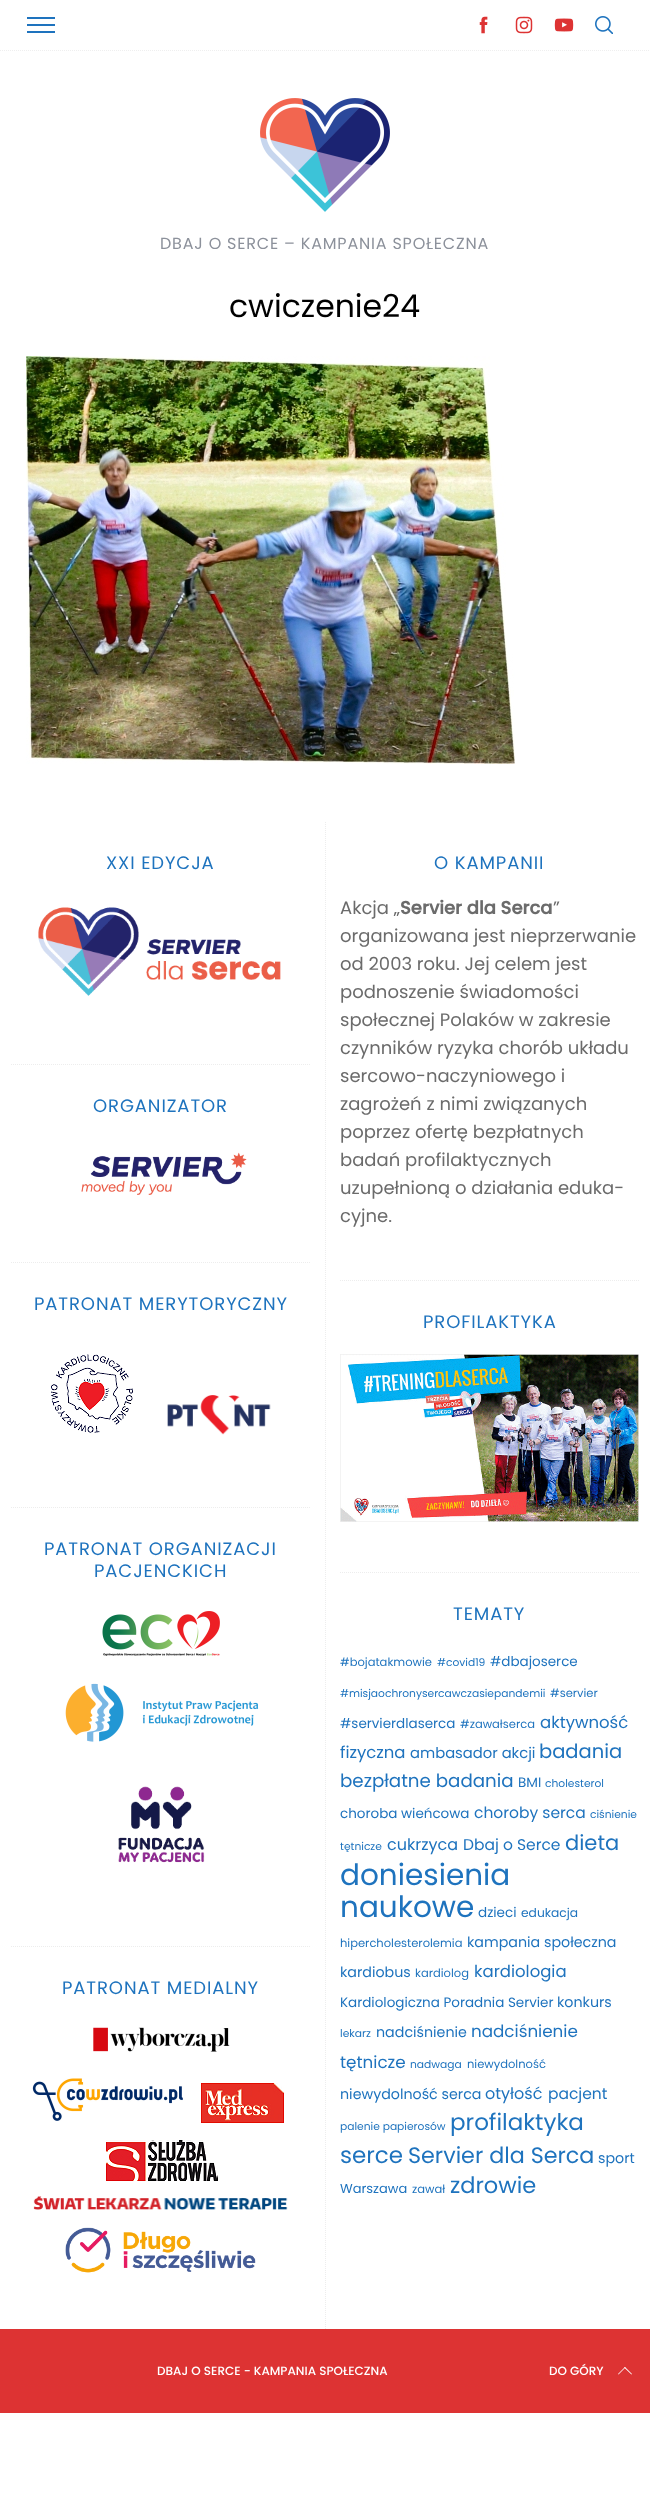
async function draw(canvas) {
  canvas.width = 650;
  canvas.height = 2510;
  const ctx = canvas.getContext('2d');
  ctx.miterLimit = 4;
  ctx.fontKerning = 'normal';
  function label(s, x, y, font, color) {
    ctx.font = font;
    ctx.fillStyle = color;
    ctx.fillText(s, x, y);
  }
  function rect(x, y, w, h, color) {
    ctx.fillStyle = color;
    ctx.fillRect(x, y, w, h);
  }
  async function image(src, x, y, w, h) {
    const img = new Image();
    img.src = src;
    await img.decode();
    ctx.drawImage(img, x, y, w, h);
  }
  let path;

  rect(0, 0, 650, 2510, '#fff');
  path = new Path2D('M0 50.5H650');
  ctx.strokeStyle = '#efefef';
  ctx.setLineDash([1, 1]);
  ctx.stroke(path);
  rect(27, 24, 28, 2, '#1e73be');
  rect(27, 17, 28, 2, '#1e73be');
  rect(27, 31, 28, 2, '#1e73be');
  await image('assets/img1.png', 479, 16, 9, 18);
  await image('assets/img2.png', 515, 16, 18, 18);
  await image('assets/img3.png', 554, 18, 20, 14);
  await image('assets/img4.png', 595, 16, 18, 18);
  await image('assets/img5.png', 260, 98, 130, 114);
  ctx.letterSpacing = '0.8px';
  label('DBAJ O SERCE – KAMPANIA SPOŁECZNA', 160, 249, '16px Poppins', '#8c919b');
  ctx.letterSpacing = '0px';
  label('cwiczenie24', 229, 317, '31.5px Poppins', '#000');
  await image('assets/img6.png', 26, 356, 489, 408);
  path = new Path2D('M11 1064.5H310');
  ctx.strokeStyle = '#ededed';
  ctx.stroke(path);
  ctx.letterSpacing = '0.9px';
  label('XXI EDYCJA', 106, 869, '18px Poppins', '#1e73be');
  await image('assets/img7.png', 38, 907, 243, 89);
  path = new Path2D('M11 1262.5H310');
  ctx.stroke(path);
  label('ORGANIZATOR', 93, 1112, '18px Poppins', '#1e73be');
  await image('assets/img8.png', 81, 1152, 166, 43);
  path = new Path2D('M11 1507.5H310');
  ctx.stroke(path);
  label('PATRONAT MERYTORYCZNY', 34, 1310, '18px Poppins', '#1e73be');
  await image('assets/img9.png', 51, 1354, 82, 79);
  await image('assets/img10.png', 167, 1395, 104, 40);
  path = new Path2D('M11 1946.5H310');
  ctx.stroke(path);
  label('PATRONAT ORGANIZACJI', 44, 1555, '18px Poppins', '#1e73be');
  label('PACJENCKICH', 94, 1577, '18px Poppins', '#1e73be');
  await image('assets/img11.png', 102, 1611, 118, 45);
  await image('assets/img12.png', 65, 1683, 194, 59);
  await image('assets/img13.png', 118, 1786, 87, 77);
  label('PATRONAT MEDIALNY', 62, 1994, '18px Poppins', '#1e73be');
  await image('assets/img14.png', 93, 2027, 137, 25);
  await image('assets/img15.png', 32, 2078, 151, 43);
  await image('assets/img16.png', 201, 2083, 83, 40);
  await image('assets/img17.png', 106, 2140, 112, 41);
  await image('assets/img18.png', 33, 2196, 255, 14);
  await image('assets/img19.png', 65, 2227, 191, 46);
  path = new Path2D('M325.5 822V2329');
  ctx.stroke(path);
  path = new Path2D('M340 1280.5H639');
  ctx.stroke(path);
  label('O KAMPANII', 434, 869, '18px Poppins', '#1e73be');
  ctx.letterSpacing = '0px';
  label('Akcja „', 340, 914, '18px Poppins', '#6b6b6b');
  label('Servier dla Serca', 400, 914, 'bold 18px Poppins', '#6b6b6b');
  label('”', 553, 914, '18px Poppins', '#6b6b6b');
  label('organizowana jest nieprzerwanie', 340, 942, '18px Poppins', '#6b6b6b');
  label('od 2003 roku. Jej celem jest', 340, 970, '18px Poppins', '#6b6b6b');
  label('podnoszenie świadomości', 340, 998, '18px Poppins', '#6b6b6b');
  label('społecznej Polaków w zakresie', 340, 1026, '18px Poppins', '#6b6b6b');
  label('czynników ryzyka chorób układu', 340, 1054, '18px Poppins', '#6b6b6b');
  label('sercowo-naczyniowego i', 340, 1082, '18px Poppins', '#6b6b6b');
  label('zagrożeń z nimi związanych', 340, 1110, '18px Poppins', '#6b6b6b');
  label('poprzez ofertę bezpłatnych', 340, 1138, '18px Poppins', '#6b6b6b');
  label('badań profilaktycznych', 340, 1166, '18px Poppins', '#6b6b6b');
  label('uzupełnioną o działania eduka-', 340, 1194, '18px Poppins', '#6b6b6b');
  label('cyjne.', 340, 1222, '18px Poppins', '#6b6b6b');
  path = new Path2D('M340 1572.5H639');
  ctx.stroke(path);
  ctx.letterSpacing = '0.9px';
  label('PROFILAKTYKA', 423, 1328, '18px Poppins', '#1e73be');
  await image('assets/img20.png', 340, 1354, 299, 168);
  label('TEMATY', 453, 1620, '18px Poppins', '#1e73be');
  ctx.letterSpacing = '0px';
  label('#bojatakmowie', 340, 1666, '11.5px Poppins', '#1e73be');
  label('#covid19', 437, 1666, '10.7px Poppins', '#1e73be');
  label('#dbajoserce', 490, 1666, '13.5px Poppins', '#1e73be');
  label('#misjaochronysercawczasiepandemii', 340, 1697, '10.7px Poppins', '#1e73be');
  label('#servier', 550, 1697, '11.5px Poppins', '#1e73be');
  label('#servierdlaserca', 340, 1728, '13.5px Poppins', '#1e73be');
  label('#zawałserca', 460, 1728, '11.5px Poppins', '#1e73be');
  label('aktywność', 540, 1728, '16.5px Poppins', '#1e73be');
  label('fizyczna', 340, 1758, '16.5px Poppins', '#1e73be');
  label('ambasador akcji', 410, 1758, '14.75px Poppins', '#1e73be');
  label('badania', 539, 1758, '19.5px Poppins', '#1e73be');
  label('bezpłatne badania', 340, 1787, '18.25px Poppins', '#1e73be');
  label('BMI', 518, 1787, '13.5px Poppins', '#1e73be');
  label('cholesterol', 545, 1787, '10.7px Poppins', '#1e73be');
  label('choroba wieńcowa', 340, 1818, '13.5px Poppins', '#1e73be');
  label('choroby serca', 474, 1818, '15.5px Poppins', '#1e73be');
  label('ciśnienie', 590, 1818, '10.7px Poppins', '#1e73be');
  label('tętnicze', 340, 1850, '10.7px Poppins', '#1e73be');
  label('cukrzyca', 387, 1850, '16px Poppins', '#1e73be');
  label('Dbaj o Serce', 463, 1850, '15.5px Poppins', '#1e73be');
  label('dieta', 565, 1850, '21px Poppins', '#1e73be');
  label('doniesienia', 340, 1885, '29.5px Poppins', '#1e73be');
  label('naukowe', 340, 1917, '29.5px Poppins', '#1e73be');
  label('dzieci', 478, 1917, '13.5px Poppins', '#1e73be');
  label('edukacja', 521, 1917, '12.25px Poppins', '#1e73be');
  label('hipercholesterolemia', 340, 1947, '11.5px Poppins', '#1e73be');
  label('kampania społeczna', 467, 1947, '14.25px Poppins', '#1e73be');
  label('kardiobus', 340, 1977, '14.25px Poppins', '#1e73be');
  label('kardiolog', 415, 1977, '11.5px Poppins', '#1e73be');
  label('kardiologia', 474, 1977, '16.5px Poppins', '#1e73be');
  label('Kardiologiczna Poradnia Servier', 340, 2007, '13.5px Poppins', '#1e73be');
  label('konkurs', 557, 2007, '14.25px Poppins', '#1e73be');
  label('lekarz', 340, 2037, '10.7px Poppins', '#1e73be');
  label('nadciśnienie', 376, 2037, '14.25px Poppins', '#1e73be');
  label('nadciśnienie', 471, 2037, '16.75px Poppins', '#1e73be');
  label('tętnicze', 340, 2068, '16.75px Poppins', '#1e73be');
  label('nadwaga', 410, 2068, '10.7px Poppins', '#1e73be');
  label('niewydolność', 467, 2068, '11.5px Poppins', '#1e73be');
  label('niewydolność serca', 340, 2099, '14.25px Poppins', '#1e73be');
  label('otyłość', 485, 2099, '16px Poppins', '#1e73be');
  label('pacjent', 548, 2099, '15.5px Poppins', '#1e73be');
  label('palenie papierosów', 340, 2130, '10.7px Poppins', '#1e73be');
  label('profilaktyka', 450, 2130, '23px Poppins', '#1e73be');
  label('serce', 340, 2163, '23px Poppins', '#1e73be');
  label('Servier dla Serca', 408, 2163, '22.25px Poppins', '#1e73be');
  label('sport', 598, 2163, '14.25px Poppins', '#1e73be');
  label('Warszawa', 340, 2193, '13px Poppins', '#1e73be');
  label('zawał', 412, 2193, '11.5px Poppins', '#1e73be');
  label('zdrowie', 450, 2193, '22.5px Poppins', '#1e73be');
  rect(0, 2329, 650, 84, '#d33');
  label('DBAJ O SERCE - KAMPANIA SPOŁECZNA', 157, 2375, '500 12px Poppins', '#fff');
  label('DO GÓRY', 549, 2375, '500 12px Poppins', '#fff');
  path = new Path2D('M618 2374L625 2367L625.5 2367.5L618.5 2374.5Z');
  ctx.fill(path);
  path = new Path2D('M624 2367.5L625 2367L632 2374L631.5 2374.5Z');
  ctx.fill(path);
}

draw(document.querySelector('canvas'));
